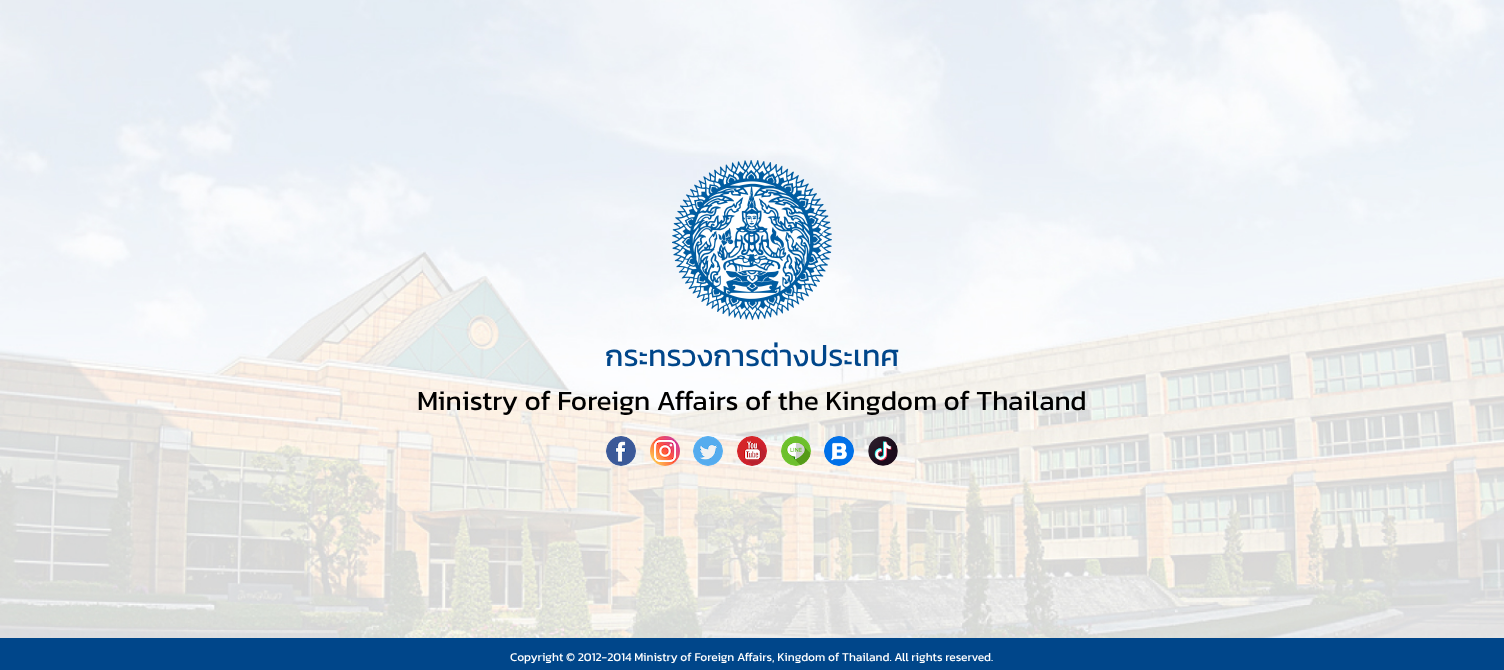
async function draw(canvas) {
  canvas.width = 1504;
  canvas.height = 670;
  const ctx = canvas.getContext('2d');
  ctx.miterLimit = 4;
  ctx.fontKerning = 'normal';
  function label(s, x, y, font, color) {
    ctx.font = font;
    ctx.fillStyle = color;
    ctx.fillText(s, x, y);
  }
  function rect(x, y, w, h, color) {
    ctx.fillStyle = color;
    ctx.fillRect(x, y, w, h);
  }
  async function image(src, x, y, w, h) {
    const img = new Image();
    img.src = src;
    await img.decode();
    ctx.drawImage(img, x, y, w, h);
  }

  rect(0, 0, 1504, 670, '#fff');
  await image('assets/img1.png', 0, 0, 1504, 638);
  await image('assets/img2.png', 672, 160, 160, 160);
  label('กระทรวงการต่างประเทศ', 605, 366, '30px Kanit', '#00468a');
  label('Ministry of Foreign Affairs of the Kingdom of Thailand', 417, 410, '28px Kanit', '#000');
  await image('assets/img3.png', 606, 436, 30, 30);
  await image('assets/img4.png', 650, 436, 30, 30);
  await image('assets/img5.png', 693, 436, 30, 30);
  await image('assets/img6.png', 737, 436, 30, 30);
  await image('assets/img7.png', 781, 436, 30, 30);
  await image('assets/img8.png', 824, 436, 30, 30);
  await image('assets/img9.png', 868, 436, 30, 30);
  rect(0, 638, 1504, 32, '#00468a');
  label('Copyright © 2012-2014 Ministry of Foreign Affairs, Kingdom of Thailand. All rights reserved.', 510, 661, '12px Kanit', '#fff');
}

draw(document.querySelector('canvas'));
